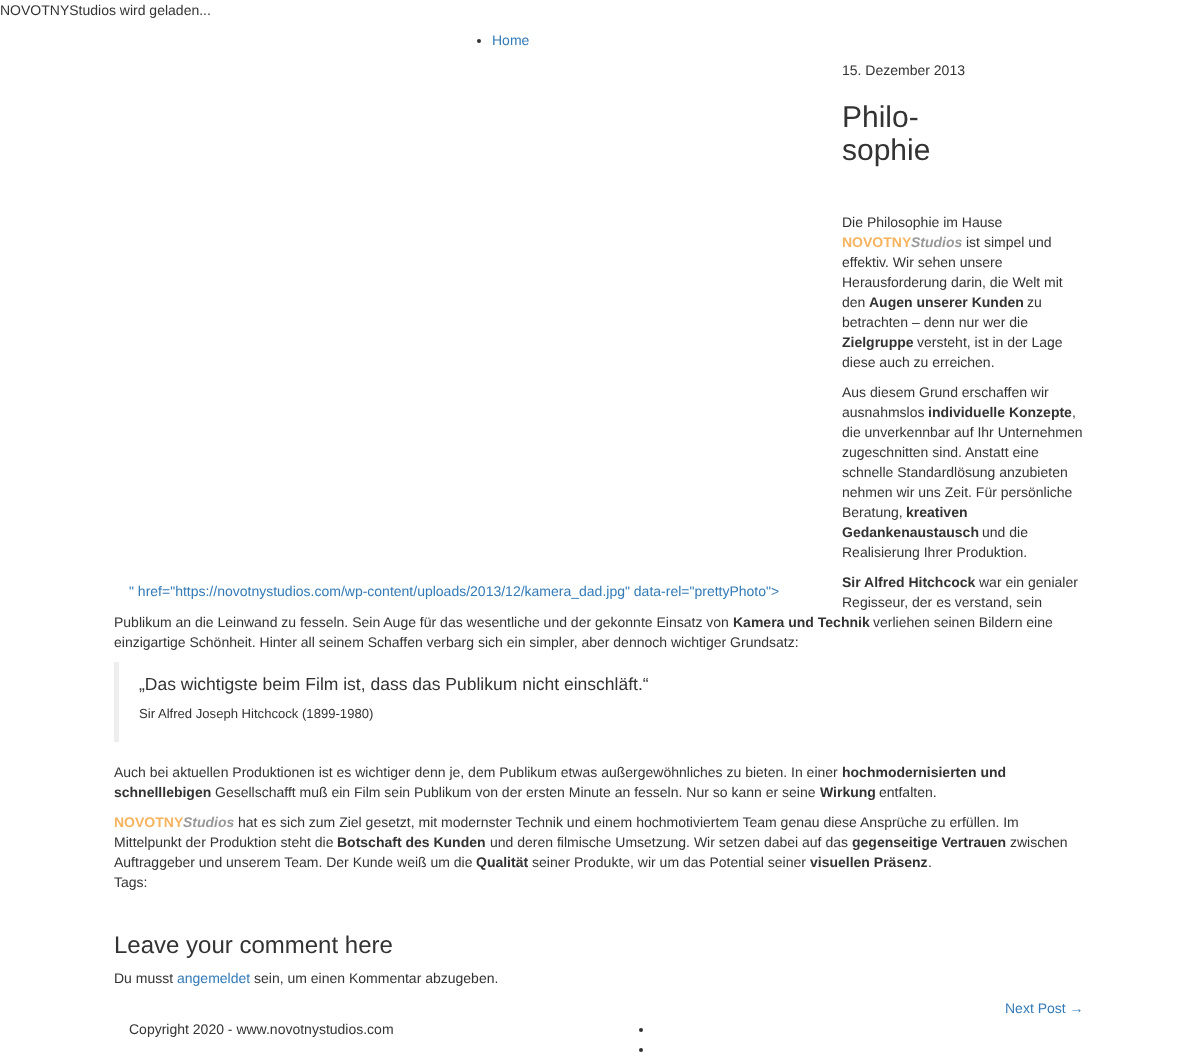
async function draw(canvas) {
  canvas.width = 1198;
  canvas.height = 1059;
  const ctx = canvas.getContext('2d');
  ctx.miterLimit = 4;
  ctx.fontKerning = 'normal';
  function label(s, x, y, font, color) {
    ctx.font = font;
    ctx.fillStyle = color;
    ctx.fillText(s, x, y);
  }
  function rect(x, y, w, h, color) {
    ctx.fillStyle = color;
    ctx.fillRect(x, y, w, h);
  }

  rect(0, 0, 1198, 1059, '#fff');
  label('NOVOTNYStudios wird geladen...', 0, 15, '14px Liberation Sans', '#333');
  ctx.beginPath();
  ctx.arc(479, 41, 2, 0, 2 * Math.PI);
  ctx.fill();
  label('Home', 492, 45, '14px Liberation Sans', '#337ab7');
  label('15. Dezember 2013', 842, 75, '14px Liberation Sans', '#333');
  label('Philo-', 842, 127, '30px Liberation Sans', '#333');
  label('sophie', 842, 160, '30px Liberation Sans', '#333');
  label('Die Philosophie im Hause', 842, 227, '14px Liberation Sans', '#333');
  label('NOVOTNY', 842, 247, 'bold 14px Liberation Sans', '#f7b35f');
  label('Studios', 911, 247, 'italic bold 14px Liberation Sans', '#999');
  label('ist simpel und', 966, 247, '14px Liberation Sans', '#333');
  label('effektiv. Wir sehen unsere', 842, 267, '14px Liberation Sans', '#333');
  label('Herausforderung darin, die Welt mit', 842, 287, '14px Liberation Sans', '#333');
  label('den', 842, 307, '14px Liberation Sans', '#333');
  label('Augen unserer Kunden', 869, 307, 'bold 14px Liberation Sans', '#333');
  label('zu', 1027, 307, '14px Liberation Sans', '#333');
  label('betrachten – denn nur wer die', 842, 327, '14px Liberation Sans', '#333');
  label('Zielgruppe', 842, 347, 'bold 14px Liberation Sans', '#333');
  label('versteht, ist in der Lage', 917, 347, '14px Liberation Sans', '#333');
  label('diese auch zu erreichen.', 842, 367, '14px Liberation Sans', '#333');
  label('Aus diesem Grund erschaffen wir', 842, 397, '14px Liberation Sans', '#333');
  label('ausnahmslos', 842, 417, '14px Liberation Sans', '#333');
  label('individuelle Konzepte', 928, 417, 'bold 14px Liberation Sans', '#333');
  label(',', 1072, 417, '14px Liberation Sans', '#333');
  label('die unverkennbar auf Ihr Unternehmen', 842, 437, '14px Liberation Sans', '#333');
  label('zugeschnitten sind. Anstatt eine', 842, 457, '14px Liberation Sans', '#333');
  label('schnelle Standardlösung anzubieten', 842, 477, '14px Liberation Sans', '#333');
  label('nehmen wir uns Zeit. Für persönliche', 842, 497, '14px Liberation Sans', '#333');
  label('Beratung,', 842, 517, '14px Liberation Sans', '#333');
  label('kreativen', 906, 517, 'bold 14px Liberation Sans', '#333');
  label('Gedankenaustausch', 842, 537, 'bold 14px Liberation Sans', '#333');
  label('und die', 982, 537, '14px Liberation Sans', '#333');
  label('Realisierung Ihrer Produktion.', 842, 557, '14px Liberation Sans', '#333');
  label('Sir Alfred Hitchcock', 842, 587, 'bold 14px Liberation Sans', '#333');
  label('war ein genialer', 979, 587, '14px Liberation Sans', '#333');
  label('Regisseur, der es verstand, sein', 842, 607, '14px Liberation Sans', '#333');
  label('Publikum an die Leinwand zu fesseln. Sein Auge für das wesentliche und der gekonnte Einsatz von', 114, 627, '14px Liberation Sans', '#333');
  label('Kamera und Technik', 733, 627, 'bold 14px Liberation Sans', '#333');
  label('verliehen seinen Bildern eine', 873, 627, '14px Liberation Sans', '#333');
  label('einzigartige Schönheit. Hinter all seinem Schaffen verbarg sich ein simpler, aber dennoch wichtiger Grundsatz:', 114, 647, '14px Liberation Sans', '#333');
  rect(114, 662, 5, 80, '#eee');
  label('„Das wichtigste beim Film ist, dass das Publikum nicht einschläft.“', 139, 690, '17.5px Liberation Sans', '#333');
  label('Sir Alfred Joseph Hitchcock (1899-1980)', 139, 718, '13.1px Liberation Sans', '#333');
  label('Auch bei aktuellen Produktionen ist es wichtiger denn je, dem Publikum etwas außergewöhnliches zu bieten. In einer', 114, 777, '14px Liberation Sans', '#333');
  label('hochmodernisierten und', 842, 777, 'bold 14px Liberation Sans', '#333');
  label('schnelllebigen', 114, 797, 'bold 14px Liberation Sans', '#333');
  label('Gesellschafft muß ein Film sein Publikum von der ersten Minute an fesseln. Nur so kann er seine', 215, 797, '14px Liberation Sans', '#333');
  label('Wirkung', 820, 797, 'bold 14px Liberation Sans', '#333');
  label('entfalten.', 879, 797, '14px Liberation Sans', '#333');
  label('NOVOTNY', 114, 827, 'bold 14px Liberation Sans', '#f7b35f');
  label('Studios', 183, 827, 'italic bold 14px Liberation Sans', '#999');
  label('hat es sich zum Ziel gesetzt, mit modernster Technik und einem hochmotiviertem Team genau diese Ansprüche zu erfüllen. Im', 238, 827, '14px Liberation Sans', '#333');
  label('Mittelpunkt der Produktion steht die', 114, 847, '14px Liberation Sans', '#333');
  label('Botschaft des Kunden', 337, 847, 'bold 14px Liberation Sans', '#333');
  label('und deren filmische Umsetzung. Wir setzen dabei auf das', 490, 847, '14px Liberation Sans', '#333');
  label('gegenseitige Vertrauen', 852, 847, 'bold 14px Liberation Sans', '#333');
  label('zwischen', 1010, 847, '14px Liberation Sans', '#333');
  label('Auftraggeber und unserem Team. Der Kunde weiß um die', 114, 867, '14px Liberation Sans', '#333');
  label('Qualität', 476, 867, 'bold 14px Liberation Sans', '#333');
  label('seiner Produkte, wir um das Potential seiner', 532, 867, '14px Liberation Sans', '#333');
  label('visuellen Präsenz', 810, 867, 'bold 14px Liberation Sans', '#333');
  label('.', 928, 867, '14px Liberation Sans', '#333');
  label('Tags:', 114, 887, '14px Liberation Sans', '#333');
  label('" href="https://novotnystudios.com/wp-content/uploads/2013/12/kamera_dad.jpg" data-rel="prettyPhoto">', 129, 596, '14px Liberation Sans', '#337ab7');
  label('Leave your comment here', 114, 953, '24px Liberation Sans', '#333');
  label('Du musst', 114, 983, '14px Liberation Sans', '#333');
  label('angemeldet', 177, 983, '14px Liberation Sans', '#337ab7');
  label('sein, um einen Kommentar abzugeben.', 254, 983, '14px Liberation Sans', '#333');
  label('Next Post →', 1005, 1013, '14px Liberation Sans', '#337ab7');
  label('Copyright 2020 - www.novotnystudios.com', 129, 1034, '14px Liberation Sans', '#333');
  ctx.beginPath();
  ctx.arc(641, 1030, 2, 0, 2 * Math.PI);
  ctx.fill();
  ctx.beginPath();
  ctx.arc(641, 1050, 2, 0, 2 * Math.PI);
  ctx.fill();
}

draw(document.querySelector('canvas'));
